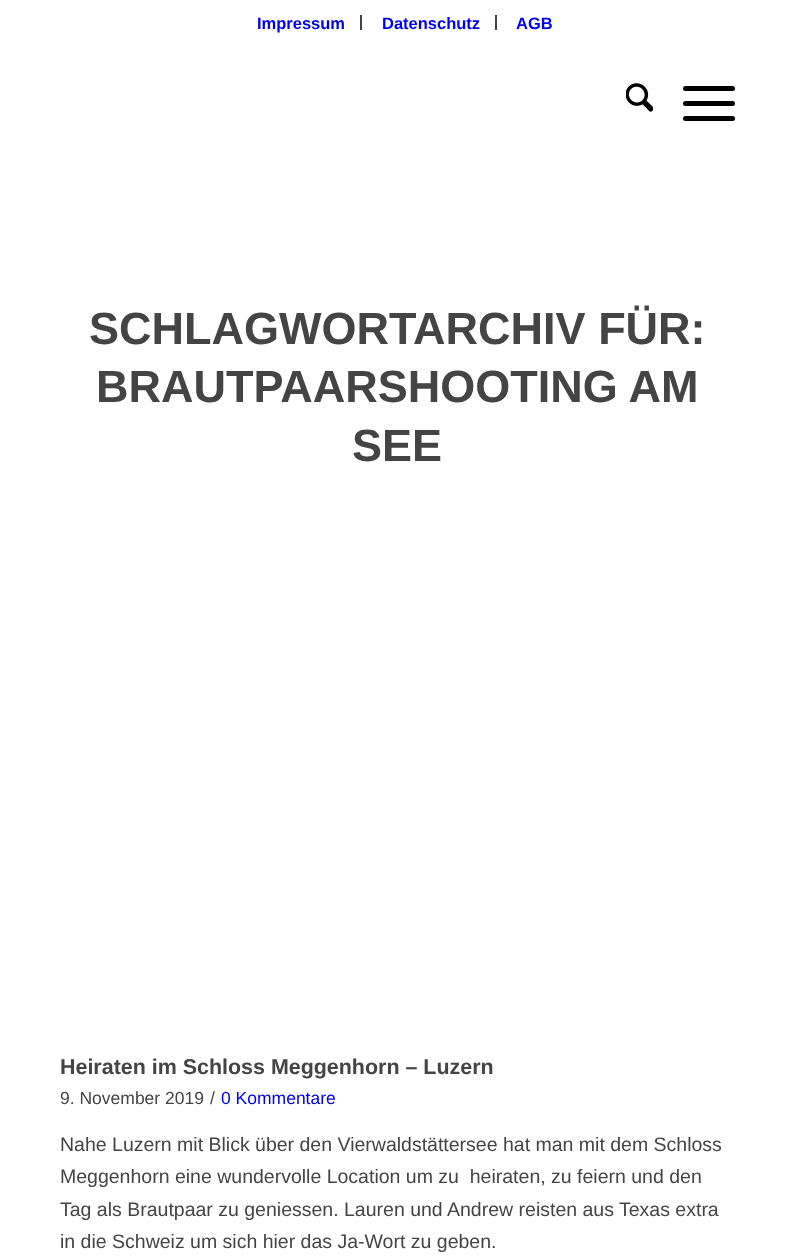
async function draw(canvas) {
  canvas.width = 795;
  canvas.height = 1258;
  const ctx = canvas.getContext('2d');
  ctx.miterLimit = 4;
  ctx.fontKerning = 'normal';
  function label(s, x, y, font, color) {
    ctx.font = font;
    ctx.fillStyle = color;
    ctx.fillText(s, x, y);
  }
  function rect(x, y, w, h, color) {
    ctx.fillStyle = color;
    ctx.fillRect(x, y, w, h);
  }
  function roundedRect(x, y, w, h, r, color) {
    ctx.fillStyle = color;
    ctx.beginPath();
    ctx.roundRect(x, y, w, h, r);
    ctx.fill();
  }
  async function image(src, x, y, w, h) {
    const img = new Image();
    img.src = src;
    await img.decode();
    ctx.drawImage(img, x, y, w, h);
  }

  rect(0, 0, 795, 1258, '#fff');
  rect(360, 15, 2, 15, '#444');
  label('Impressum', 257, 29, 'bold 16.5px Liberation Sans', '#00e');
  rect(495, 15, 2, 15, '#444');
  label('Datenschutz', 382, 29, 'bold 16.5px Liberation Sans', '#00e');
  label('AGB', 516, 29, 'bold 16.5px Liberation Sans', '#00e');
  await image('assets/img1.png', 626, 83, 27, 29);
  roundedRect(683, 101, 52, 5, 2.5, '#000');
  roundedRect(683, 86, 52, 5, 2.5, '#000');
  roundedRect(683, 116, 52, 5, 2.5, '#000');
  label('SCHLAGWORTARCHIV FÜR:', 89, 344, 'bold 45px Liberation Sans', '#444');
  label('BRAUTPAARSHOOTING AM', 96, 402, 'bold 45px Liberation Sans', '#444');
  label('SEE', 352, 461, 'bold 45px Liberation Sans', '#444');
  label('Heiraten im Schloss Meggenhorn – Luzern', 60, 1074, 'bold 21.45px Liberation Sans', '#444');
  label('9. November 2019', 60, 1104, '17.5px Liberation Sans', '#444');
  label('/', 210, 1104, '17.5px Liberation Sans', '#444');
  label('0 Kommentare', 221, 1104, '17.5px Liberation Sans', '#00e');
  label('Nahe Luzern mit Blick über den Vierwaldstättersee hat man mit dem Schloss', 60, 1151, '19.5px Liberation Sans', '#444');
  label('Meggenhorn eine wundervolle Location um zu  heiraten, zu feiern und den', 60, 1183, '19.5px Liberation Sans', '#444');
  label('Tag als Brautpaar zu geniessen. Lauren und Andrew reisten aus Texas extra', 60, 1216, '19.5px Liberation Sans', '#444');
  label('in die Schweiz um sich hier das Ja-Wort zu geben.', 60, 1248, '19.5px Liberation Sans', '#444');
}

draw(document.querySelector('canvas'));
